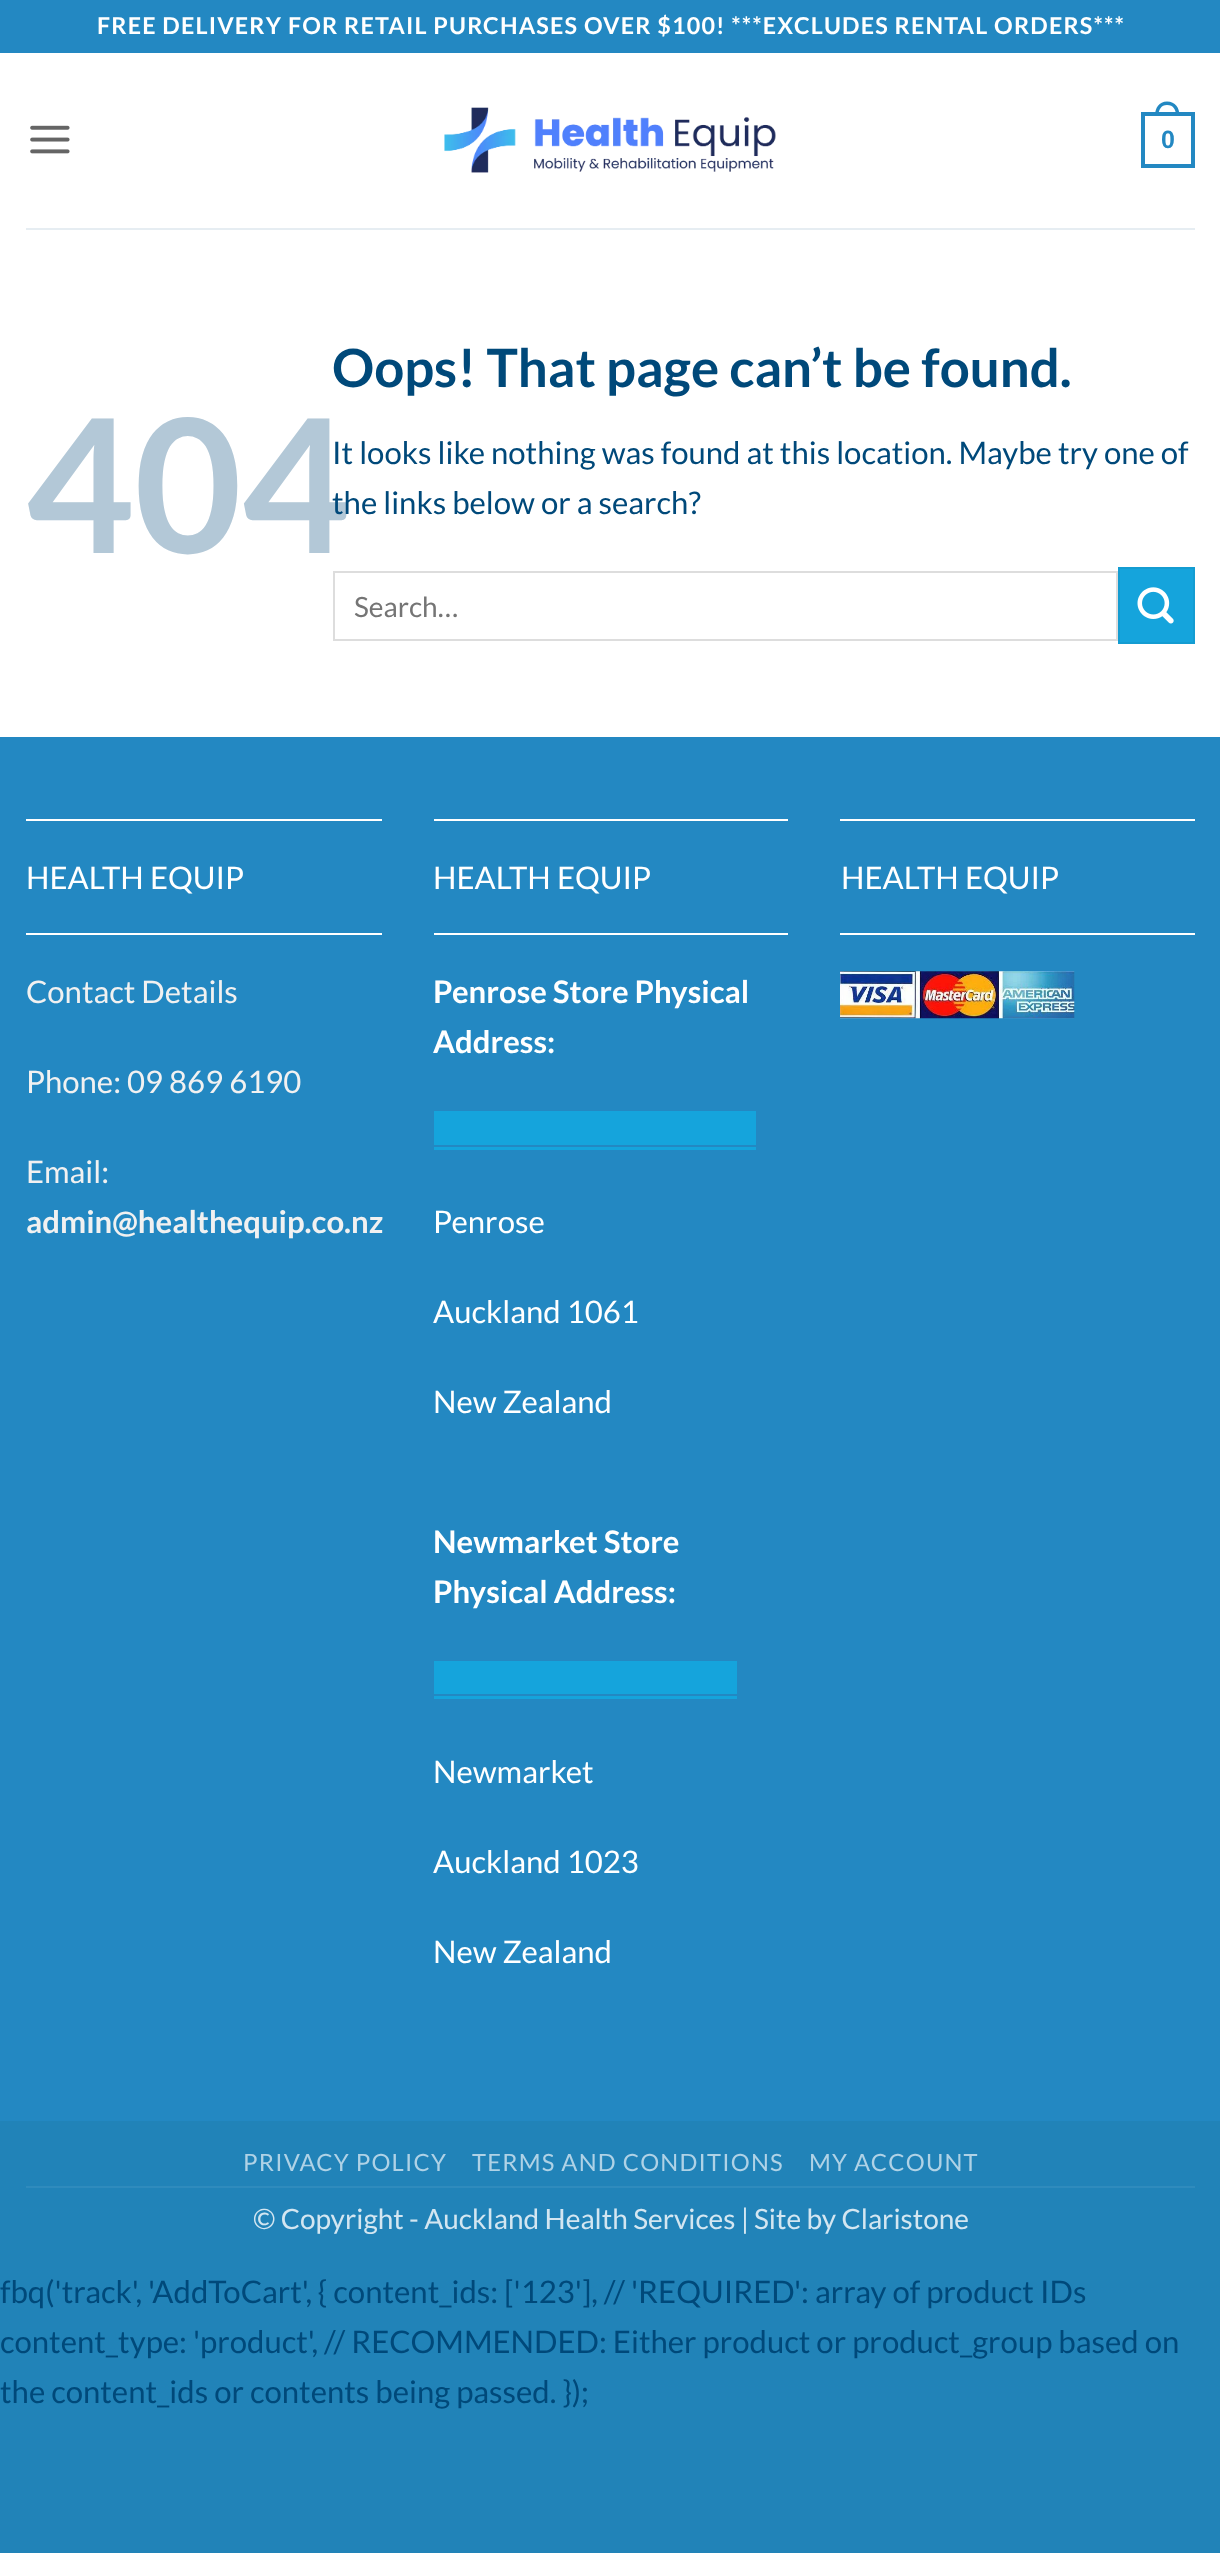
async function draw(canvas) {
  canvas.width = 1220;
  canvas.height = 2553;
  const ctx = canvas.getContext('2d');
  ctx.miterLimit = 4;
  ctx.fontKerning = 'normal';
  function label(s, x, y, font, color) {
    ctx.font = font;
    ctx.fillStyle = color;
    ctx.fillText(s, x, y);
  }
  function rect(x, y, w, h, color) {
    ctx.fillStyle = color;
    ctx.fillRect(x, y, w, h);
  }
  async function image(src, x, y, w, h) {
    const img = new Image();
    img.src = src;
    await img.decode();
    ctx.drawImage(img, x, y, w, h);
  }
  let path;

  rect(0, 0, 1220, 2553, '#2183b8');
  rect(0, 53, 1220, 684, '#fff');
  rect(0, 0, 1220, 53, '#2388c2');
  ctx.letterSpacing = '1.17px';
  label('FREE DELIVERY FOR RETAIL PURCHASES OVER $100! ***EXCLUDES RENTAL ORDERS***', 97, 34, 'bold 23.3px Lato', '#fff');
  await image('assets/img1.png', 30, 125, 40, 29);
  await image('assets/img2.png', 444, 107, 332, 66);
  ctx.strokeStyle = '#2388c2';
  ctx.lineWidth = 4;
  ctx.strokeRect(1143, 114, 50, 52);
  ctx.fillStyle = '#2388c2';
  path = new Path2D('M1167 101.5C1175.5 101.5 1179.5 108 1179.5 115.5H1155C1155 108 1159 101.5 1167 101.5ZM1167 105C1173.5 105 1176 110 1176 115.5H1158.5C1158.5 110 1161 105 1167 105Z');
  ctx.fill(path, 'evenodd');
  ctx.letterSpacing = '0px';
  label('0', 1161, 148, 'bold 25px Liberation Sans', '#2388c2');
  rect(26, 228, 1169, 2, '#e6edf2');
  label('404', 26, 553, 'bold 186px Lato', '#b3c8d7');
  label('Oops! That page can’t be found.', 332, 387, 'bold 52.8px Lato', '#00497a');
  label('It looks like nothing was found at this location. Maybe try one of', 332, 464, '31.1px Lato', '#00497a');
  label('the links below or a search?', 332, 514, '31.1px Lato', '#00497a');
  ctx.strokeStyle = '#ddd';
  ctx.lineWidth = 2;
  ctx.strokeRect(334, 572, 783, 68);
  label('Search…', 354, 617, '28px Lato', '#757575');
  ctx.fillStyle = '#15a4dc';
  ctx.beginPath();
  ctx.rect(1119, 568, 75, 75);
  ctx.fill();
  ctx.strokeStyle = '#149cd1';
  ctx.stroke();
  await image('assets/img3.png', 1137, 587, 37, 37);
  rect(0, 737, 1220, 1384, '#2388c2');
  rect(26, 819, 356, 2, '#fff');
  label('HEALTH EQUIP', 26, 889, '31.1px Lato', '#fff');
  rect(26, 933, 356, 2, '#fff');
  label('Contact Details', 26, 1003, '31.1px Lato', '#f1f1f1');
  label('Phone: 09 869 6190', 26, 1093, '31.1px Lato', '#f1f1f1');
  label('Email:', 26, 1183, '31.1px Lato', '#f1f1f1');
  label('admin@healthequip.co.nz', 26, 1233, 'bold 31.1px Lato', '#f1f1f1');
  rect(434, 819, 354, 2, '#fff');
  label('HEALTH EQUIP', 433, 889, '31.1px Lato', '#fff');
  rect(434, 933, 354, 2, '#fff');
  label('Penrose Store Physical', 433, 1003, 'bold 31.1px Lato', '#fff');
  label('Address:', 433, 1053, 'bold 31.1px Lato', '#fff');
  rect(434, 1111, 322, 39, '#15a4dc');
  rect(434, 1145, 322, 2, '#2388c2');
  label('Penrose', 433, 1233, '31.1px Lato', '#fff');
  label('Auckland 1061', 433, 1323, '31.1px Lato', '#fff');
  label('New Zealand', 433, 1413, '31.1px Lato', '#fff');
  label('Newmarket Store', 433, 1553, 'bold 31.1px Lato', '#fff');
  label('Physical Address:', 433, 1603, 'bold 31.1px Lato', '#fff');
  rect(434, 1661, 303, 38, '#15a4dc');
  rect(434, 1694, 303, 2, '#2388c2');
  label('Newmarket', 433, 1783, '31.1px Lato', '#fff');
  label('Auckland 1023', 433, 1873, '31.1px Lato', '#fff');
  label('New Zealand', 433, 1963, '31.1px Lato', '#fff');
  rect(840, 819, 355, 2, '#fff');
  label('HEALTH EQUIP', 841, 889, '31.1px Lato', '#fff');
  rect(840, 933, 355, 2, '#fff');
  await image('assets/img4.png', 840, 971, 235, 48);
  rect(26, 2186, 1169, 2, '#2f8bbd');
  ctx.letterSpacing = '1.2px';
  label('PRIVACY POLICY', 243, 2171, '23.75px Lato', '#afd2e6');
  label('TERMS AND CONDITIONS', 472, 2171, '23.75px Lato', '#afd2e6');
  label('MY ACCOUNT', 809, 2171, '23.75px Lato', '#afd2e6');
  ctx.letterSpacing = '0px';
  label('© Copyright - Auckland Health Services |', 253, 2229, '28px Lato', '#d3e6f1');
  label('Site by Claristone', 754, 2229, '28px Lato', '#d3e6f1');
  label('fbq(\'track\', \'AddToCart\', { content_ids: [\'123\'], // \'REQUIRED\': array of product IDs', 0, 2303, '31.1px Lato', '#00497a');
  label('content_type: \'product\', // RECOMMENDED: Either product or product_group based on', 0, 2353, '31.1px Lato', '#00497a');
  label('the content_ids or contents being passed. });', 0, 2403, '31.1px Lato', '#00497a');
}

draw(document.querySelector('canvas'));
